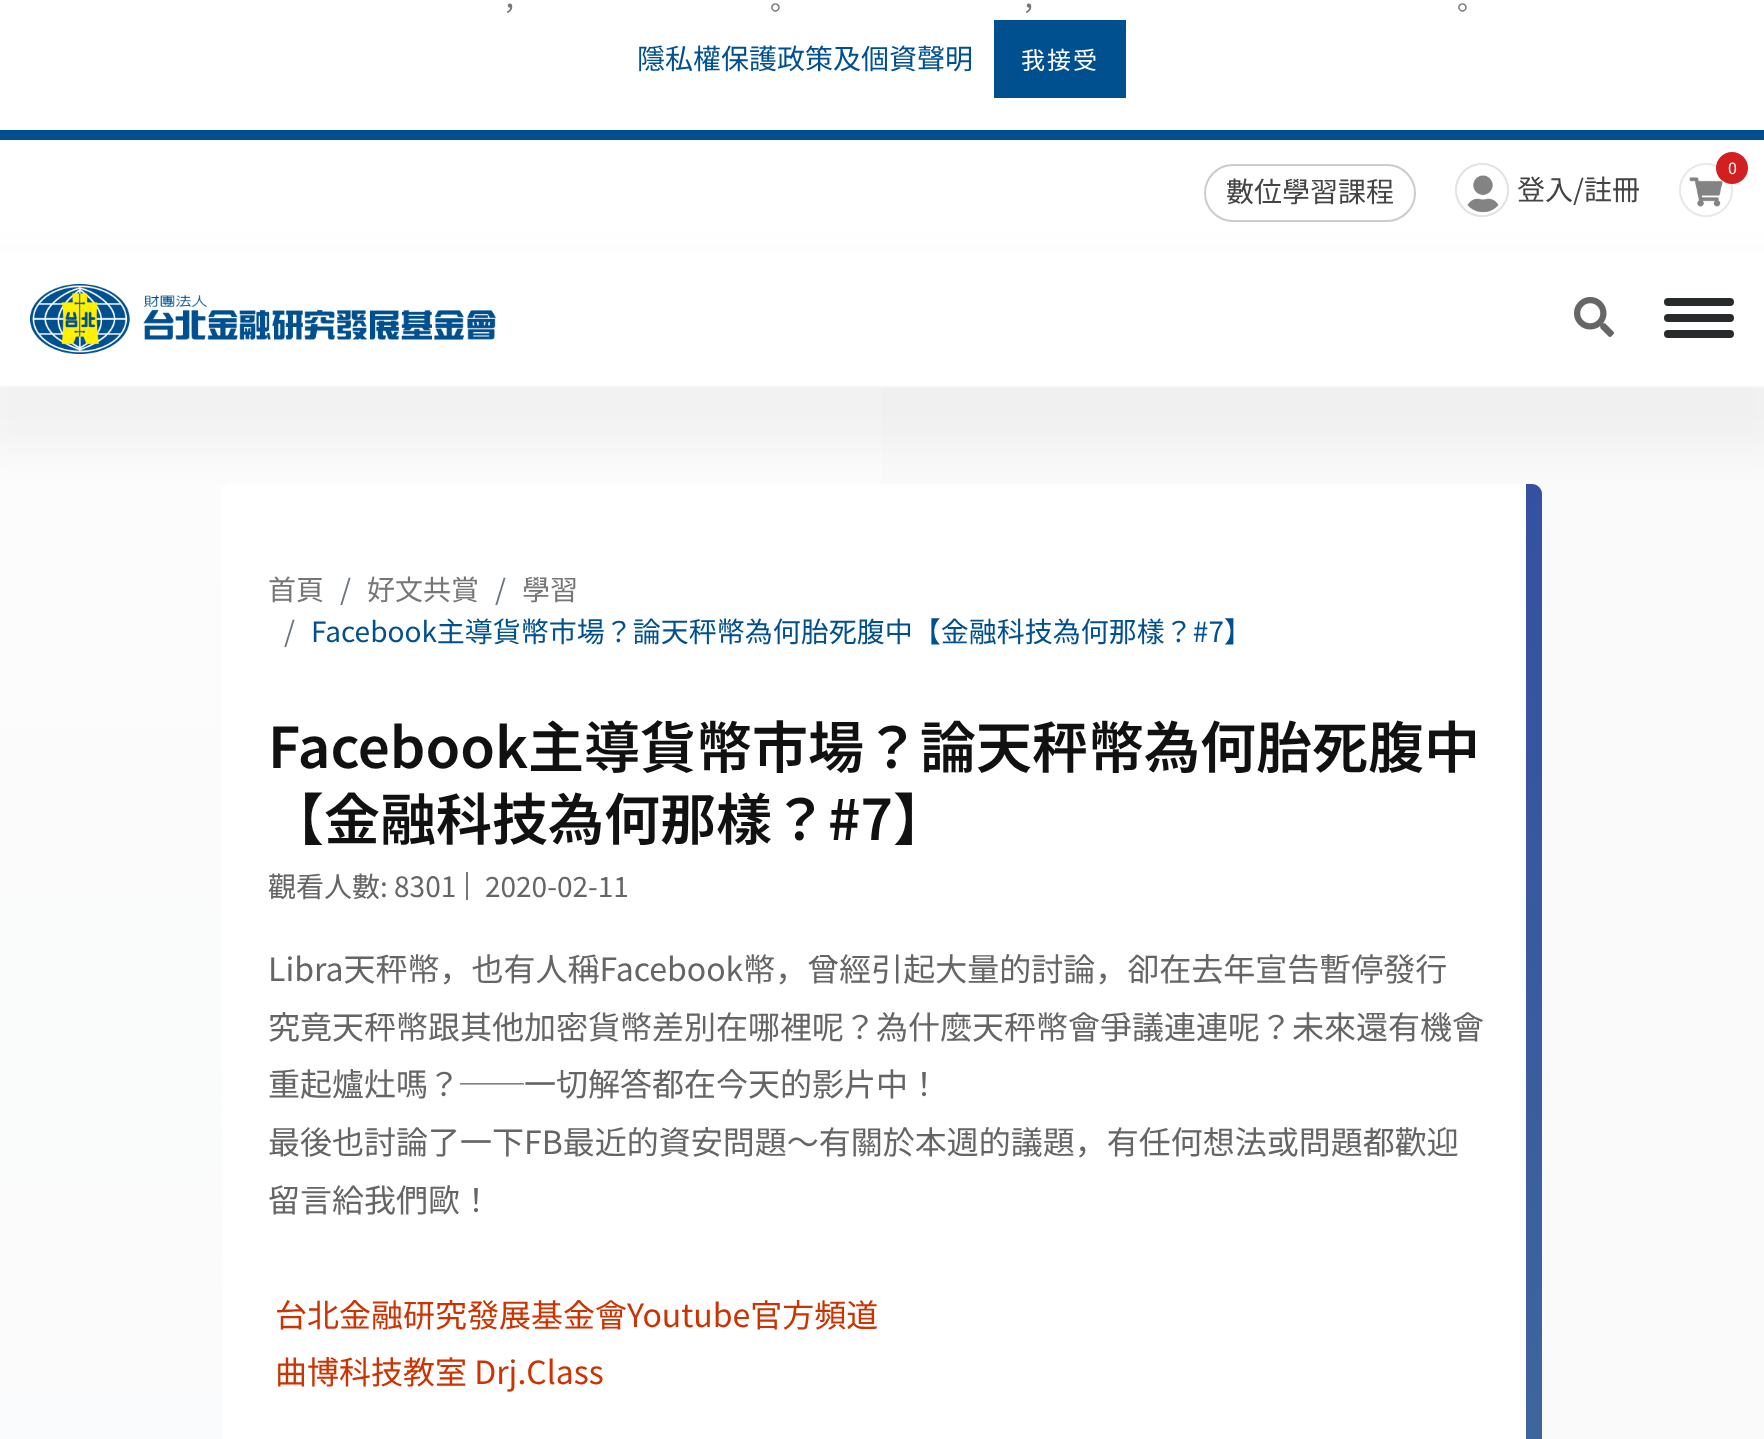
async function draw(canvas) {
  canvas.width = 1764;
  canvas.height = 1439;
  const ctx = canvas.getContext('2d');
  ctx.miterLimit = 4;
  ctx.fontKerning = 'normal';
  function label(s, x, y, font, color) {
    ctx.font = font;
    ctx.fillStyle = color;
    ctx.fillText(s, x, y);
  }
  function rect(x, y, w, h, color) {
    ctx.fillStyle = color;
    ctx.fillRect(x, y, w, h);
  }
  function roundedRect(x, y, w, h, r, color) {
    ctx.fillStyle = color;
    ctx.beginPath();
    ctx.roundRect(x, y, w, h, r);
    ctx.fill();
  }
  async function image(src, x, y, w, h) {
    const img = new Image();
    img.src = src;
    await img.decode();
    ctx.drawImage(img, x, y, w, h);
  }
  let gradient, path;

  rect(0, 0, 1764, 1439, '#fff');
  label('，', 503, 10, '28px Noto Sans JP', '#777676');
  label('。', 770, 10, '28px Noto Sans JP', '#777676');
  label('，', 1022, 10, '28px Noto Sans JP', '#777676');
  label('。', 1457, 10, '28px Noto Sans JP', '#777676');
  label('隱私權保護政策及個資聲明', 637, 69, '28px Noto Sans JP', '#00508f');
  rect(994, 20, 132, 78, '#00508f');
  ctx.letterSpacing = '2px';
  label('我接受', 1021, 69, '24px Noto Sans JP', '#fff');
  rect(0, 130, 1764, 10, '#00508f');
  await image('assets/img1.png', 1679, 163, 54, 54);
  ctx.fillStyle = '#d22020';
  ctx.beginPath();
  ctx.arc(1732, 168, 16, 0, 2 * Math.PI);
  ctx.fill();
  ctx.letterSpacing = '0px';
  label('0', 1728, 174, '16px Noto Sans JP', '#fff');
  ctx.beginPath();
  ctx.roundRect(1205, 165, 210, 56, 28);
  ctx.strokeStyle = '#ccc';
  ctx.lineWidth = 2;
  ctx.stroke();
  label('數位學習課程', 1226, 202, '28px Noto Sans JP', '#444');
  await image('assets/img2.png', 1455, 163, 54, 54);
  label('登入/註冊', 1517, 200, '28px Noto Sans JP', '#444');
  rect(882, 388, 882, 1051, '#fafafa');
  gradient = ctx.createLinearGradient(441, 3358, 441, 288);
  gradient.addColorStop(0, '#f0f2f8');
  gradient.addColorStop(0.5, '#f9fafb');
  gradient.addColorStop(0.98, '#fcfcfc');
  ctx.fillStyle = gradient;
  ctx.fillRect(0, 388, 882, 1051);
  roundedRect(222, 484, 1320, 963, 8, '#fff');
  gradient = ctx.createLinearGradient(1534, 484, 1534, 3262);
  gradient.addColorStop(0, '#3550a1');
  gradient.addColorStop(1, '#528c97');
  ctx.fillStyle = gradient;
  path = new Path2D('M1526 484H1532C1537.5 484 1542 488.5 1542 494V1439C1542 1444.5 1537.5 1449 1532 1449H1526Z');
  ctx.fill(path);
  ctx.fillStyle = '#0000000a';
  ctx.filter = 'blur(20px)';
  ctx.beginPath();
  ctx.rect(-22, 264, 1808, 186);
  ctx.fill();
  ctx.filter = 'none';
  rect(0, 251, 1764, 135, '#fff');
  await image('assets/img3.png', 1574, 297, 40, 40);
  roundedRect(1664, 298, 70, 8, 4, '#272b2b');
  roundedRect(1664, 314, 70, 8, 4, '#272b2b');
  roundedRect(1664, 330, 70, 8, 4, '#272b2b');
  await image('assets/img4.png', 30, 284, 466, 70);
  label('首頁', 268, 600, '28px Noto Sans JP', '#777676');
  label('/', 340, 600, '28px Noto Sans JP', '#6c757d');
  label('好文共賞', 367, 600, '28px Noto Sans JP', '#777676');
  label('/', 495, 600, '28px Noto Sans JP', '#6c757d');
  label('學習', 522, 600, '28px Noto Sans JP', '#777676');
  label('/', 284, 642, '28px Noto Sans JP', '#6c757d');
  label('Facebook主導貨幣市場？論天秤幣為何胎死腹中【金融科技為何那樣？#7】', 311, 642, '28px Noto Sans JP', '#00508f');
  label('Facebook主導貨幣市場？論天秤幣為何胎死腹中', 268, 768, '600 56px Noto Sans JP', '#111');
  label('【金融科技為何那樣？#7】', 268, 840, '600 56px Noto Sans JP', '#111');
  rect(466, 872, 2, 28, '#777676');
  label('觀看人數: 8301', 268, 897, '28px Noto Sans JP', '#656565');
  label('2020-02-11', 485, 897, '28px Noto Sans JP', '#656565');
  label('Libra天秤幣，也有人稱Facebook幣，曾經引起大量的討論，卻在去年宣告暫停發行', 268, 981, '32px Noto Sans JP', '#656565');
  label('究竟天秤幣跟其他加密貨幣差別在哪裡呢？為什麼天秤幣會爭議連連呢？未來還有機會', 268, 1039, '32px Noto Sans JP', '#656565');
  label('重起爐灶嗎？──一切解答都在今天的影片中！', 268, 1096, '32px Noto Sans JP', '#656565');
  label('最後也討論了一下FB最近的資安問題～有關於本週的議題，有任何想法或問題都歡迎', 268, 1154, '32px Noto Sans JP', '#656565');
  label('留言給我們歐！', 268, 1212, '32px Noto Sans JP', '#656565');
  label('台北金融研究發展基金會Youtube官方頻道', 275, 1327, '32px Noto Sans JP', '#c30');
  label('曲博科技教室 Drj.Class', 275, 1384, '32px Noto Sans JP', '#c30');
}

draw(document.querySelector('canvas'));
